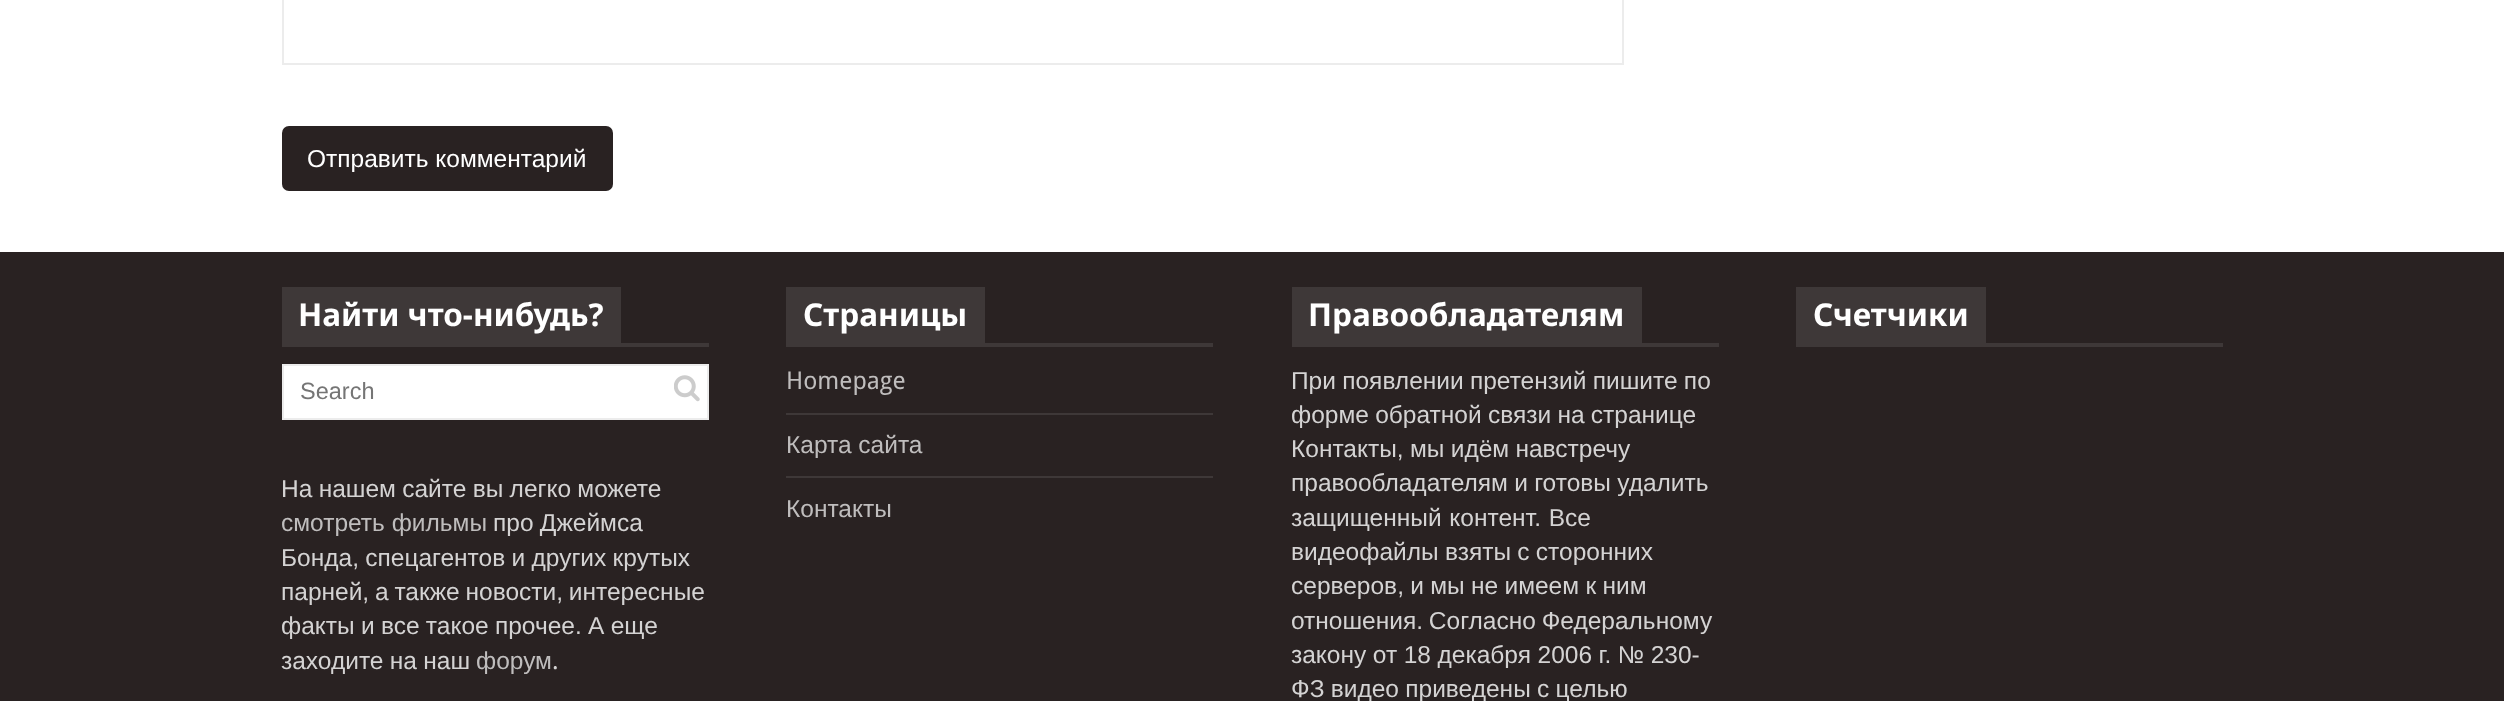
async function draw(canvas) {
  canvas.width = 2504;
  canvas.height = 701;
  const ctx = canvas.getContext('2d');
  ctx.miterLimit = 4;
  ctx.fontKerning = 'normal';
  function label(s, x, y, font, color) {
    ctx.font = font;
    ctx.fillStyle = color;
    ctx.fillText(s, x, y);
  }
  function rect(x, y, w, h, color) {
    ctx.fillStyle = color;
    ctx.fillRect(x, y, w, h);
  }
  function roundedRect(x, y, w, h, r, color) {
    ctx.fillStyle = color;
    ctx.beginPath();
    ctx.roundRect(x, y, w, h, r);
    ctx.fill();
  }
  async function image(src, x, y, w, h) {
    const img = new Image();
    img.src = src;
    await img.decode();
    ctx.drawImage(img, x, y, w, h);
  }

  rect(0, 0, 2504, 701, '#fff');
  ctx.strokeStyle = '#ececec';
  ctx.lineWidth = 2;
  ctx.strokeRect(283, -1, 1340, 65);
  roundedRect(282, 126, 331, 65, 7, '#292222');
  label('Отправить комментарий', 307, 167, '24.5px Liberation Sans', '#fff');
  rect(0, 252, 2504, 449, '#292222');
  rect(282, 343, 427, 4, '#3e3838');
  rect(282, 287, 339, 56, '#3e3838');
  label('Найти что-нибудь?', 298, 326, 'bold 31.5px Noto Sans', '#fff');
  ctx.beginPath();
  ctx.rect(283, 365, 425, 54);
  ctx.fill();
  ctx.stroke();
  label('Search', 300, 399, '23.5px Liberation Sans', '#757575');
  await image('assets/img1.png', 674, 375, 26, 27);
  ctx.wordSpacing = '-0.5px';
  label('На нашем сайте вы легко можете', 281, 497, '24.5px Liberation Sans', '#d4d3d3');
  ctx.wordSpacing = '0px';
  label('смотреть фильмы', 281, 531, '24.5px Liberation Sans', '#bfbdbd');
  ctx.wordSpacing = '-0.5px';
  label('про Джеймса', 493, 531, '24.5px Liberation Sans', '#d4d3d3');
  label('Бонда, спецагентов и других крутых', 281, 566, '24.5px Liberation Sans', '#d4d3d3');
  ctx.wordSpacing = '-1px';
  label('парней, а также новости, интересные', 281, 600, '24.5px Liberation Sans', '#d4d3d3');
  ctx.wordSpacing = '-0.5px';
  label('факты и все такое прочее. А еще', 281, 634, '24.5px Liberation Sans', '#d4d3d3');
  label('заходите на наш', 281, 669, '24.5px Liberation Sans', '#d4d3d3');
  ctx.wordSpacing = '0px';
  label('форум', 476, 669, '24.5px Liberation Sans', '#bfbdbd');
  label('.', 552, 669, '24.5px Droid Sans', '#d4d3d3');
  rect(786, 343, 427, 4, '#3e3838');
  rect(786, 287, 199, 56, '#3e3838');
  label('Страницы', 803, 326, 'bold 31.5px Noto Sans', '#fff');
  rect(786, 413, 427, 2, '#3e3838');
  label('Homepage', 786, 389, '24.5px Droid Sans', '#bfbdbd');
  rect(786, 476, 427, 2, '#3e3838');
  label('Карта сайта', 786, 453, '24.5px Liberation Sans', '#bfbdbd');
  label('Контакты', 786, 517, '24.5px Liberation Sans', '#bfbdbd');
  rect(1292, 343, 427, 4, '#3e3838');
  rect(1292, 287, 350, 56, '#3e3838');
  label('Правообладателям', 1308, 326, 'bold 31.5px Noto Sans', '#fff');
  ctx.wordSpacing = '-0.5px';
  label('При появлении претензий пишите по', 1291, 389, '24.5px Liberation Sans', '#d4d3d3');
  label('форме обратной связи на странице', 1291, 423, '24.5px Liberation Sans', '#d4d3d3');
  label('Контакты, мы идём навстречу', 1291, 457, '24.5px Liberation Sans', '#d4d3d3');
  label('правообладателям и готовы удалить', 1291, 491, '24.5px Liberation Sans', '#d4d3d3');
  ctx.wordSpacing = '1px';
  label('защищенный контент. Все', 1291, 526, '24.5px Liberation Sans', '#d4d3d3');
  ctx.wordSpacing = '-0.5px';
  label('видеофайлы взяты с сторонних', 1291, 560, '24.5px Liberation Sans', '#d4d3d3');
  label('серверов, и мы не имеем к ним', 1291, 594, '24.5px Liberation Sans', '#d4d3d3');
  ctx.wordSpacing = '-1px';
  label('отношения. Согласно Федеральному', 1291, 629, '24.5px Liberation Sans', '#d4d3d3');
  ctx.wordSpacing = '-0.25px';
  label('закону от 18 декабря 2006 г. № 230-', 1291, 663, '24.5px Liberation Sans', '#d4d3d3');
  ctx.wordSpacing = '-0.5px';
  label('ФЗ видео приведены с целью', 1291, 697, '24.5px Liberation Sans', '#d4d3d3');
  rect(1796, 343, 427, 4, '#3e3838');
  rect(1796, 287, 190, 56, '#3e3838');
  ctx.wordSpacing = '0px';
  label('Счетчики', 1813, 326, 'bold 31.5px Noto Sans', '#fff');
}

draw(document.querySelector('canvas'));
